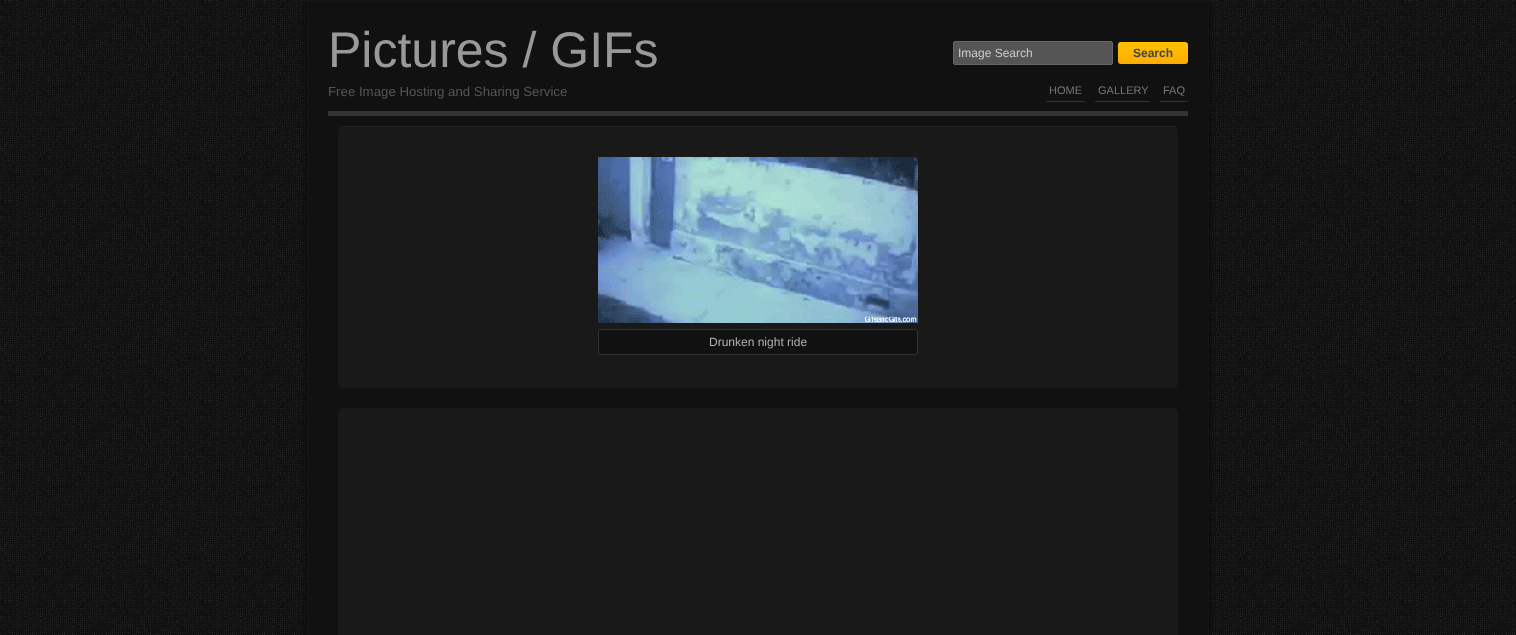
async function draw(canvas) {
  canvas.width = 1516;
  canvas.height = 635;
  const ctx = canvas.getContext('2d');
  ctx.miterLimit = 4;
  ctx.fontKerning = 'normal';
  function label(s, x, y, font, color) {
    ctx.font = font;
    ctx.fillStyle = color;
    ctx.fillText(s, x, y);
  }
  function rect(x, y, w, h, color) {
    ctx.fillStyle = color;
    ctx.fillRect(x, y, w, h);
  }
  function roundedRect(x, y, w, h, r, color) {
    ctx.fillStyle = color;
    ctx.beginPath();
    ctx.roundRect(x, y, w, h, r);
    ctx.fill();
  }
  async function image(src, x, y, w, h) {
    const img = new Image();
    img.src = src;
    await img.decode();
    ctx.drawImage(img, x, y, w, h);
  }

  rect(0, 0, 1516, 635, '#111');
  await image('assets/img1.png', 0, 0, 1515, 635);
  ctx.fillStyle = '#050505';
  ctx.filter = 'blur(2.5px)';
  ctx.beginPath();
  ctx.rect(307, 0, 902, 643);
  ctx.fill();
  ctx.filter = 'none';
  ctx.fillStyle = '#111';
  ctx.beginPath();
  ctx.rect(307.5, 0.5, 901, 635);
  ctx.fill();
  ctx.strokeStyle = '#151515';
  ctx.stroke();
  rect(328, 111, 860, 5, '#333');
  label('Pictures / GIFs', 328, 67, '50px Liberation Sans', '#999');
  label('Free Image Hosting and Sharing Service', 328, 96, '13.25px Liberation Sans', '#555');
  ctx.beginPath();
  ctx.roundRect(953.5, 41.5, 159, 23, 1.5);
  ctx.fill();
  ctx.strokeStyle = '#666';
  ctx.stroke();
  label('Image Search', 958, 57, '12px Liberation Sans', '#ccc');
  await image('assets/img2.png', 1118, 42, 70, 22);
  label('Search', 1133, 57, 'bold 12px Liberation Sans', '#444');
  rect(1046, 101, 39, 1, '#333');
  label('HOME', 1049, 94, '11px Liberation Sans', '#777');
  rect(1095, 101, 55, 1, '#333');
  label('GALLERY', 1098, 94, '11px Liberation Sans', '#777');
  rect(1160, 101, 28, 1, '#333');
  label('FAQ', 1163, 94, '11px Liberation Sans', '#777');
  roundedRect(338, 126, 840, 262, 5, '#191919');
  rect(341, 126, 835, 1, '#222');
  await image('assets/img3.png', 598, 157, 320, 166);
  ctx.fillStyle = '#111';
  ctx.beginPath();
  ctx.roundRect(598.5, 329.5, 319, 25, 2.5);
  ctx.fill();
  ctx.strokeStyle = '#333';
  ctx.stroke();
  label('Drunken night ride', 709, 346, '12px Liberation Sans', '#b1b1b1');
  roundedRect(338, 408, 840, 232, 5, '#191919');
}

draw(document.querySelector('canvas'));
